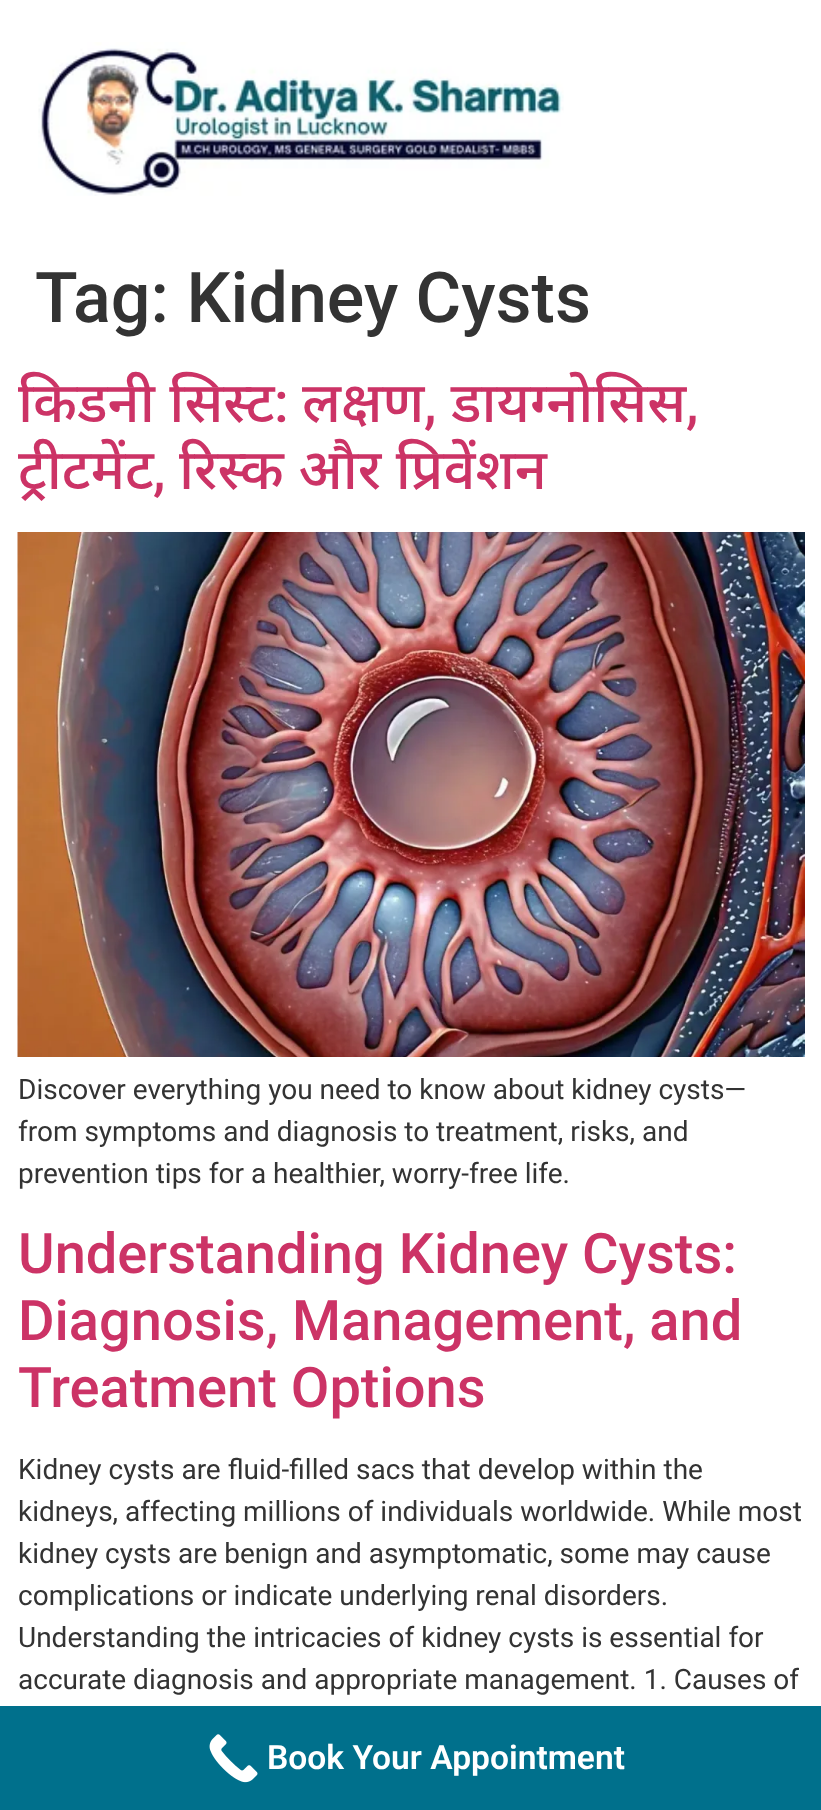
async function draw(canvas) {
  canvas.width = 821;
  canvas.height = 1810;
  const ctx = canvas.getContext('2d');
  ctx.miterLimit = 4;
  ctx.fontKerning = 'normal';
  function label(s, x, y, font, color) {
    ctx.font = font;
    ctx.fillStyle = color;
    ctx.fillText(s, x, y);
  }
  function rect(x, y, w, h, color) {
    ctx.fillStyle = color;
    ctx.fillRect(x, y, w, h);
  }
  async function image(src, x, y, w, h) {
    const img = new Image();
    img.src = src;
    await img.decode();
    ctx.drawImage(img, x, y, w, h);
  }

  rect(0, 0, 821, 1810, '#fff');
  await image('assets/img1.png', 38, 42, 526, 154);
  label('Tag: Kidney Cysts', 35, 322, '500 70px Roboto', '#333');
  label('किडनी सिस्ट', 18, 422, '500 56px Noto Sans', '#c36');
  label(':', 274, 422, '500 56px Roboto', '#c36');
  label('लक्षण', 302, 422, '500 56px Noto Sans', '#c36');
  label(',', 424, 422, '500 56px Roboto', '#c36');
  label('डायग्नोसिस', 451, 422, '500 56px Noto Sans', '#c36');
  label(',', 686, 422, '500 56px Roboto', '#c36');
  label('ट्रीटमेंट', 18, 489, '500 56px Noto Sans', '#c36');
  label(',', 153, 489, '500 56px Roboto', '#c36');
  label('रिस्क और प्रिवेंशन', 179, 489, '500 56px Noto Sans', '#c36');
  await image('assets/img2.png', 17, 532, 788, 525);
  label('Discover everything you need to know about kidney cysts—', 18, 1099, '28px Roboto', '#333');
  label('from symptoms and diagnosis to treatment, risks, and', 18, 1141, '28px Roboto', '#333');
  label('prevention tips for a healthier, worry-free life.', 18, 1183, '28px Roboto', '#333');
  label('Understanding Kidney Cysts:', 18, 1273, '500 56px Roboto', '#c36');
  label('Diagnosis, Management, and', 18, 1340, '500 56px Roboto', '#c36');
  label('Treatment Options', 18, 1407, '500 56px Roboto', '#c36');
  label('Kidney cysts are fluid-filled sacs that develop within the', 18, 1479, '28px Roboto', '#333');
  label('kidneys, affecting millions of individuals worldwide. While most', 18, 1521, '28px Roboto', '#333');
  label('kidney cysts are benign and asymptomatic, some may cause', 18, 1563, '28px Roboto', '#333');
  label('complications or indicate underlying renal disorders.', 18, 1605, '28px Roboto', '#333');
  label('Understanding the intricacies of kidney cysts is essential for', 18, 1647, '28px Roboto', '#333');
  label('accurate diagnosis and appropriate management. 1. Causes of', 18, 1689, '28px Roboto', '#333');
  rect(0, 1706, 821, 104, '#00708c');
  await image('assets/img3.png', 209, 1734, 49, 49);
  label('Book Your Appointment', 267, 1769, '600 33.6px Roboto', '#fff');
}

draw(document.querySelector('canvas'));
